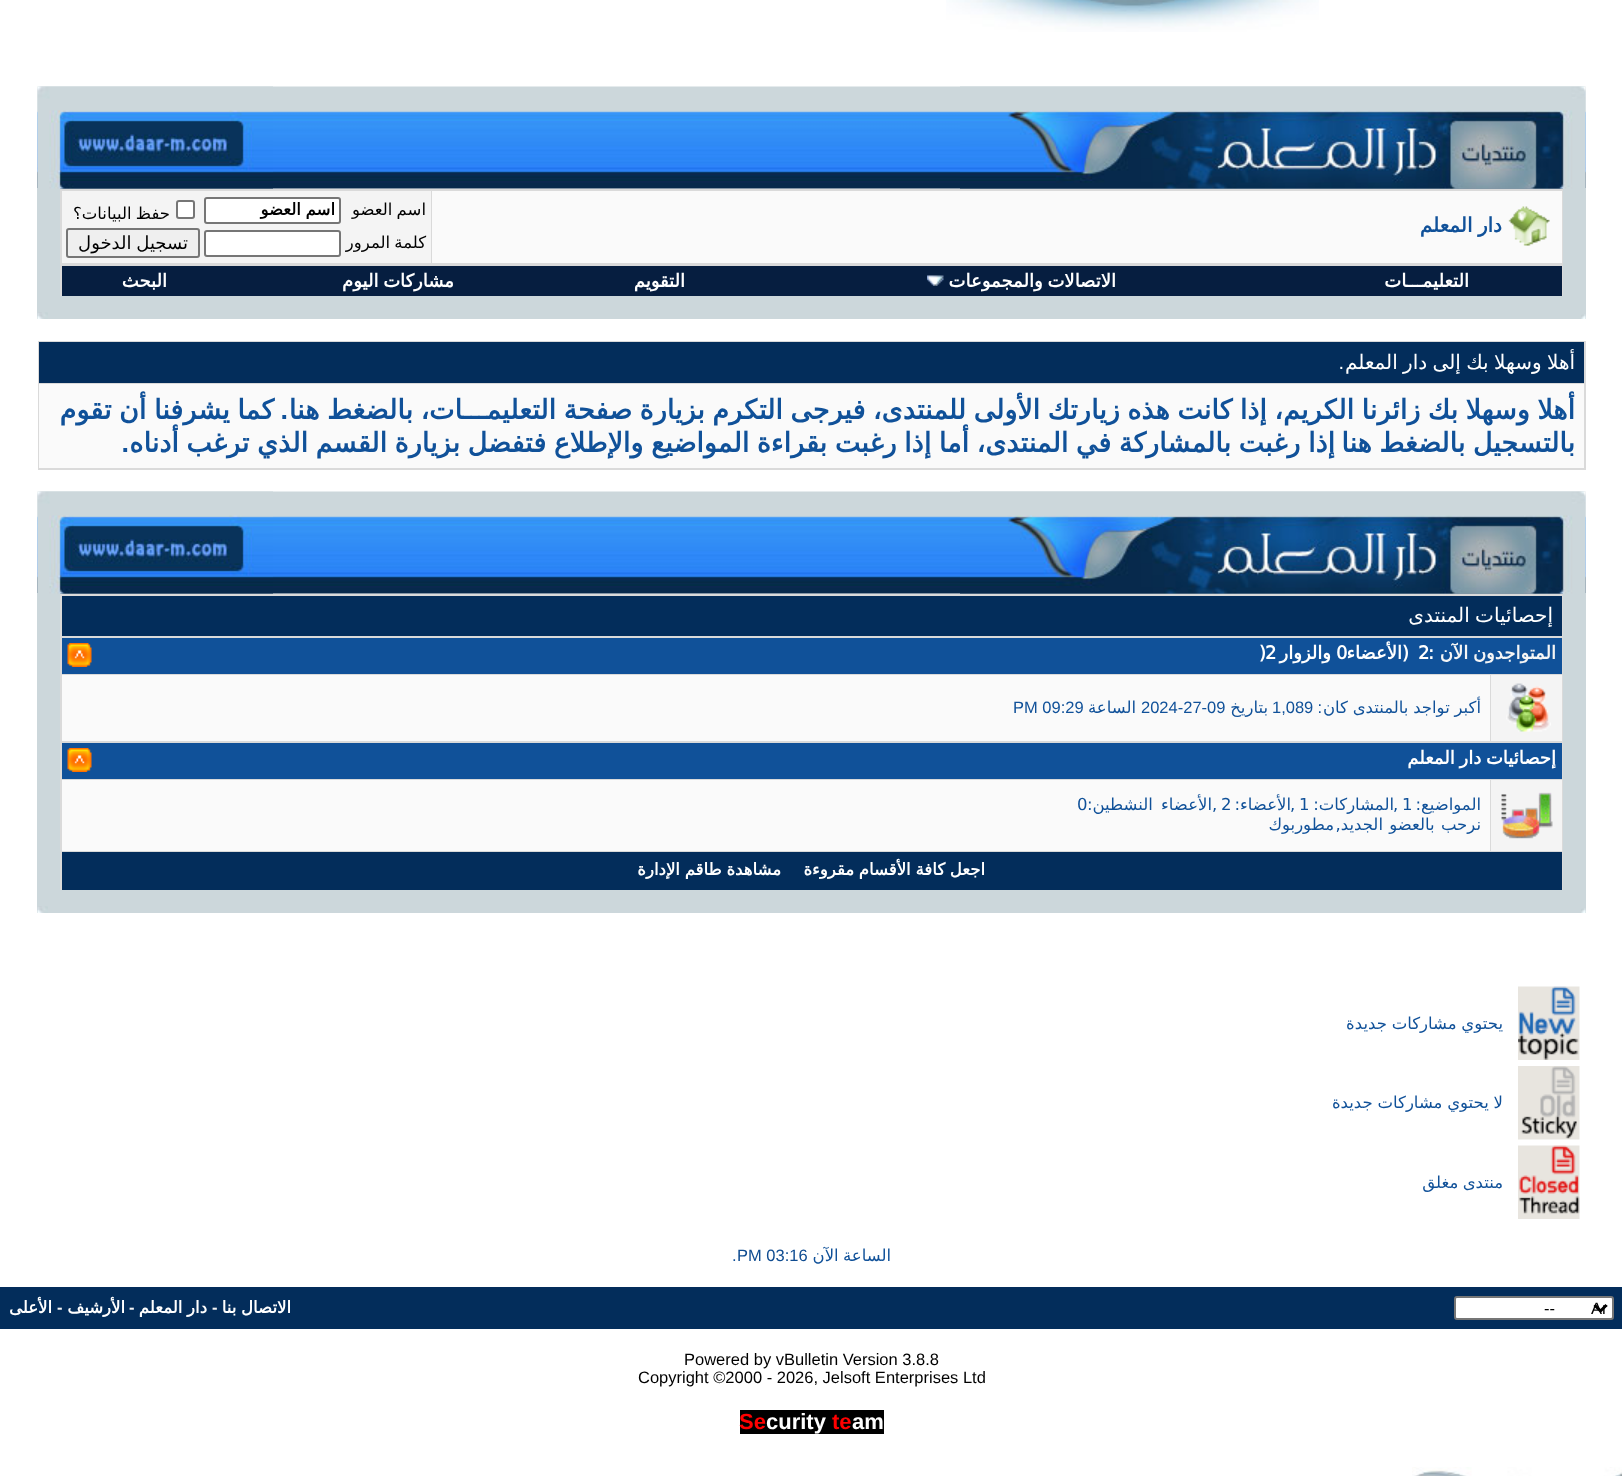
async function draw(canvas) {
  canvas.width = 1622;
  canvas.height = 1476;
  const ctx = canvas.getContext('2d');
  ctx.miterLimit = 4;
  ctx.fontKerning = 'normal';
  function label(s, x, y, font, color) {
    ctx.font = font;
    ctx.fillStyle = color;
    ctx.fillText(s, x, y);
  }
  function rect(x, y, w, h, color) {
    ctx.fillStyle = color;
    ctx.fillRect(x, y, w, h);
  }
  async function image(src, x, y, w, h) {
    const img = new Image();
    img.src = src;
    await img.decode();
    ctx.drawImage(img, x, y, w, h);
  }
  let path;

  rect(0, 0, 1622, 1476, '#fff');
  await image('assets/img1.png', 946, 0, 373, 32);
  await image('assets/img2.png', 37, 86, 1549, 103);
  rect(1563, 188, 23, 108, '#ccd7db');
  await image('assets/img3.png', 960, 86, 626, 103);
  rect(37, 188, 23, 108, '#ccd7db');
  await image('assets/img4.png', 37, 86, 236, 103);
  rect(60, 189, 1503, 107, '#dadada');
  rect(432, 191, 1130, 72, '#fafafa');
  await image('assets/img5.png', 1508, 206, 42, 40);
  ctx.wordSpacing = '-1px';
  ctx.direction = 'rtl';
  label('دار المعلم', 1502, 232, 'bold 20px DejaVu Sans', '#105199');
  rect(62, 191, 369, 72, '#f4f4f4');
  label('اسم العضو', 426, 215, '16.5px DejaVu Sans', '#000');
  ctx.fillStyle = '#fff';
  ctx.beginPath();
  ctx.roundRect(205, 198, 135, 25, 2);
  ctx.fill();
  ctx.strokeStyle = '#767676';
  ctx.lineWidth = 2;
  ctx.stroke();
  ctx.wordSpacing = '-0.5px';
  label('اسم العضو', 335, 215, 'bold 16.5px DejaVu Sans', '#000');
  ctx.fillStyle = '#fff';
  ctx.beginPath();
  ctx.roundRect(177, 201, 17, 17, 2);
  ctx.fill();
  ctx.stroke();
  ctx.wordSpacing = '-1px';
  label('حفظ البيانات؟', 170, 219, '16.5px DejaVu Sans', '#000');
  label('كلمة المرور', 426, 248, '16.5px DejaVu Sans', '#000');
  ctx.fillStyle = '#fff';
  ctx.beginPath();
  ctx.roundRect(205, 231, 135, 25, 2);
  ctx.fill();
  ctx.stroke();
  ctx.fillStyle = '#efefef';
  ctx.beginPath();
  ctx.roundRect(67, 229, 132, 28, 2);
  ctx.fill();
  ctx.stroke();
  label('تسجيل الدخول', 188, 249, '18px DejaVu Sans', '#000');
  rect(62, 266, 1500, 30, '#061e40');
  ctx.wordSpacing = '0px';
  label('التعليمـــات', 1469, 287, 'bold 18px DejaVu Sans', '#fff');
  ctx.wordSpacing = '-1px';
  label('الاتصالات والمجموعات', 1116, 287, 'bold 18px DejaVu Sans', '#fff');
  await image('assets/img6.png', 927, 275, 17, 11);
  ctx.wordSpacing = '0px';
  label('التقويم', 685, 287, 'bold 18px DejaVu Sans', '#fff');
  ctx.wordSpacing = '-1px';
  label('مشاركات اليوم', 454, 287, 'bold 18px DejaVu Sans', '#fff');
  ctx.wordSpacing = '0px';
  label('البحث', 167, 287, 'bold 18px DejaVu Sans', '#fff');
  rect(37, 296, 1549, 23, '#ccd7db');
  await image('assets/img7.png', 1581, 314, 5, 5);
  await image('assets/img8.png', 37, 312, 11, 7);
  rect(38, 341, 1548, 129, '#dadada');
  rect(39, 342, 1545, 41, '#032d5b');
  ctx.wordSpacing = '-1px';
  label('أهلا وسهلا بك إلى دار المعلم', 1575, 369, '20px DejaVu Sans', '#fff');
  ctx.wordSpacing = '0px';
  label('.', 1344, 369, '20px Liberation Sans', '#fff');
  rect(39, 384, 1545, 84, '#fafafa');
  ctx.wordSpacing = '-1.1px';
  label('أهلا وسهلا بك زائرنا الكريم، إذا كانت هذه زيارتك الأولى للمنتدى، فيرجى التكرم بزيارة صفحة التعليمـــات،', 1575, 419, 'bold 27px DejaVu Sans', '#105199');
  ctx.wordSpacing = '-1px';
  label('بالضغط هنا', 413, 419, 'bold 27px DejaVu Sans', '#105199');
  ctx.wordSpacing = '0px';
  label('.', 288, 419, 'bold 27px Liberation Sans', '#105199');
  ctx.wordSpacing = '-1px';
  label('كما يشرفنا أن تقوم', 274, 419, 'bold 27px DejaVu Sans', '#105199');
  ctx.wordSpacing = '-1.1px';
  label('بالتسجيل بالضغط هنا', 1575, 452, 'bold 27px DejaVu Sans', '#105199');
  ctx.wordSpacing = '-1px';
  label('إذا رغبت بالمشاركة في المنتدى، أما إذا رغبت بقراءة المواضيع والإطلاع فتفضل بزيارة القسم الذي ترغب أدناه', 1335, 452, 'bold 27px DejaVu Sans', '#105199');
  ctx.wordSpacing = '0px';
  label('.', 129, 452, 'bold 27px Liberation Sans', '#105199');
  await image('assets/img9.png', 37, 491, 1549, 103);
  rect(1563, 593, 23, 297, '#ccd7db');
  await image('assets/img3.png', 960, 491, 626, 103);
  rect(37, 593, 23, 297, '#ccd7db');
  await image('assets/img4.png', 37, 491, 236, 103);
  rect(60, 594, 1503, 296, '#dadada');
  rect(62, 596, 1500, 40, '#032d5b');
  ctx.wordSpacing = '-1px';
  label('إحصائيات المنتدى', 1553, 622, '20px DejaVu Sans', '#fff');
  rect(62, 638, 1500, 36, '#105199');
  label('المتواجدون الآن', 1556, 659, 'bold 18px DejaVu Sans', '#f5f5f5');
  ctx.wordSpacing = '0px';
  ctx.direction = 'ltr';
  label(':', 1428, 659, 'bold 18px DejaVu Sans', '#fff');
  label('2', 1418, 659, 'bold 18px DejaVu Sans', '#fff');
  ctx.direction = 'rtl';
  label('(الأعضاء', 1409, 659, 'bold 18px DejaVu Sans', '#fff');
  ctx.direction = 'ltr';
  label('0', 1336, 659, 'bold 18px DejaVu Sans', '#fff');
  ctx.direction = 'rtl';
  label('والزوار', 1331, 659, 'bold 18px DejaVu Sans', '#fff');
  ctx.direction = 'ltr';
  label('2', 1265, 659, 'bold 18px DejaVu Sans', '#fff');
  label(')', 1259, 659, 'bold 18px DejaVu Sans', '#fff');
  await image('assets/img10.png', 67, 643, 25, 24);
  rect(1491, 675, 71, 66, '#f4f4f4');
  await image('assets/img11.png', 1506, 683, 45, 49);
  rect(62, 675, 1428, 66, '#fafafa');
  ctx.wordSpacing = '-0.5px';
  ctx.direction = 'rtl';
  label('أكبر تواجد بالمنتدى كان', 1481, 713, '16.5px DejaVu Sans', '#105199');
  ctx.wordSpacing = '0px';
  label(':', 1322, 713, '16.5px Liberation Sans', '#105199');
  ctx.direction = 'ltr';
  label('1,089', 1272, 713, '16.5px Liberation Sans', '#105199');
  ctx.direction = 'rtl';
  label('بتاريخ', 1268, 713, '16.5px DejaVu Sans', '#105199');
  ctx.direction = 'ltr';
  label('2024-27-09', 1141, 713, '16.5px Liberation Sans', '#105199');
  ctx.direction = 'rtl';
  label('الساعة', 1136, 713, '16.5px DejaVu Sans', '#105199');
  ctx.direction = 'ltr';
  label('PM 09:29', 1013, 713, '16.5px Liberation Sans', '#105199');
  rect(62, 743, 1500, 36, '#105199');
  ctx.wordSpacing = '-1px';
  ctx.direction = 'rtl';
  label('إحصائيات دار المعلم', 1556, 764, 'bold 18px DejaVu Sans', '#fff');
  await image('assets/img10.png', 67, 748, 25, 24);
  rect(1491, 780, 71, 71, '#f4f4f4');
  await image('assets/img12.png', 1501, 792, 52, 47);
  rect(62, 780, 1428, 71, '#fafafa');
  ctx.wordSpacing = '0px';
  label('المواضيع:', 1481, 810, '16.5px DejaVu Sans', '#105199');
  ctx.direction = 'ltr';
  label('1', 1402, 810, '16.5px DejaVu Sans', '#105199');
  label(',', 1393, 810, '16.5px DejaVu Sans', '#105199');
  ctx.direction = 'rtl';
  label('المشاركات:', 1394, 810, '16.5px DejaVu Sans', '#105199');
  ctx.direction = 'ltr';
  label('1', 1299, 810, '16.5px DejaVu Sans', '#105199');
  label(',', 1290, 810, '16.5px DejaVu Sans', '#105199');
  ctx.direction = 'rtl';
  label('الأعضاء:', 1291, 810, '16.5px DejaVu Sans', '#105199');
  ctx.direction = 'ltr';
  label('2', 1221, 810, '16.5px DejaVu Sans', '#105199');
  label(',', 1212, 810, '16.5px DejaVu Sans', '#105199');
  ctx.wordSpacing = '3px';
  ctx.direction = 'rtl';
  label('الأعضاء النشطين:', 1212, 810, '16.5px DejaVu Sans', '#105199');
  ctx.wordSpacing = '0px';
  ctx.direction = 'ltr';
  label('0', 1077, 810, '16.5px DejaVu Sans', '#105199');
  ctx.wordSpacing = '1px';
  ctx.direction = 'rtl';
  label('نرحب بالعضو الجديد,', 1481, 830, '16.5px DejaVu Sans', '#105199');
  ctx.wordSpacing = '0px';
  label('مطوربوك', 1334, 830, '16.5px DejaVu Sans', '#105199');
  rect(62, 852, 1500, 38, '#032d5b');
  ctx.wordSpacing = '-0.5px';
  label('اجعل كافة الأقسام مقروءة', 985, 875, 'bold 16.5px DejaVu Sans', '#fff');
  label('مشاهدة طاقم الإدارة', 781, 875, 'bold 16.5px DejaVu Sans', '#fff');
  rect(37, 890, 1549, 23, '#ccd7db');
  await image('assets/img7.png', 1581, 908, 5, 5);
  await image('assets/img8.png', 37, 906, 11, 7);
  await image('assets/img13.png', 1518, 986, 62, 74);
  label('يحتوي مشاركات جديدة', 1503, 1029, '16.5px DejaVu Sans', '#105199');
  await image('assets/img14.png', 1518, 1066, 62, 74);
  label('لا يحتوي مشاركات جديدة', 1503, 1108, '16.5px DejaVu Sans', '#105199');
  await image('assets/img15.png', 1518, 1145, 62, 74);
  ctx.wordSpacing = '-1px';
  label('منتدى مغلق', 1503, 1188, '16.5px DejaVu Sans', '#105199');
  label('الساعة الآن', 891, 1261, '16.5px DejaVu Sans', '#105199');
  ctx.wordSpacing = '0px';
  ctx.direction = 'ltr';
  label('PM 03:16', 737, 1261, '16.5px Liberation Sans', '#0f4c91');
  label('.', 732, 1261, '16.5px Liberation Sans', '#105199');
  rect(0, 1287, 1622, 42, '#032d5b');
  ctx.fillStyle = '#fff';
  ctx.beginPath();
  ctx.roundRect(1455, 1297, 158, 22, 2);
  ctx.fill();
  ctx.stroke();
  path = new Path2D('M1594.5 1305L1600.5 1311L1606.5 1305');
  ctx.strokeStyle = '#000';
  ctx.lineWidth = 3;
  ctx.stroke(path);
  label('Ar', 1591, 1314, '16.5px Liberation Sans', '#000');
  label('--', 1544, 1314, '16.5px Liberation Sans', '#000');
  ctx.wordSpacing = '-0.5px';
  ctx.direction = 'rtl';
  label('الاتصال بنا', 291, 1313, 'bold 16.5px DejaVu Sans', '#fff');
  ctx.wordSpacing = '0px';
  ctx.direction = 'ltr';
  label('-', 212, 1313, 'bold 16.5px Liberation Sans', '#f5f5f5');
  ctx.wordSpacing = '-0.5px';
  ctx.direction = 'rtl';
  label('دار المعلم', 207, 1313, 'bold 16.5px DejaVu Sans', '#fff');
  ctx.wordSpacing = '0px';
  ctx.direction = 'ltr';
  label('-', 129, 1313, 'bold 16.5px Liberation Sans', '#f5f5f5');
  ctx.direction = 'rtl';
  label('الأرشيف', 125, 1313, 'bold 16.5px DejaVu Sans', '#fff');
  ctx.direction = 'ltr';
  label('-', 57, 1313, 'bold 16.5px Liberation Sans', '#f5f5f5');
  ctx.direction = 'rtl';
  label('الأعلى', 52, 1313, 'bold 16.5px DejaVu Sans', '#fff');
  ctx.direction = 'ltr';
  label('Powered by vBulletin Version 3.8.8', 684, 1365, '16.5px Liberation Sans', '#000');
  label('Copyright ©2000 - 2026, Jelsoft Enterprises Ltd', 638, 1383, '16.5px Liberation Sans', '#000');
  rect(740, 1410, 144, 24, '#000');
  label('am', 852, 1429, 'bold 22px Liberation Sans', '#fff');
  label('te', 832, 1429, 'bold 22px Liberation Sans', '#f00');
  label('curity', 766, 1429, 'bold 22px Liberation Sans', '#fff');
  label('Se', 739, 1429, 'bold 22px Liberation Sans', '#f00');
  await image('assets/img16.png', 1412, 1467, 210, 9);
}

draw(document.querySelector('canvas'));
